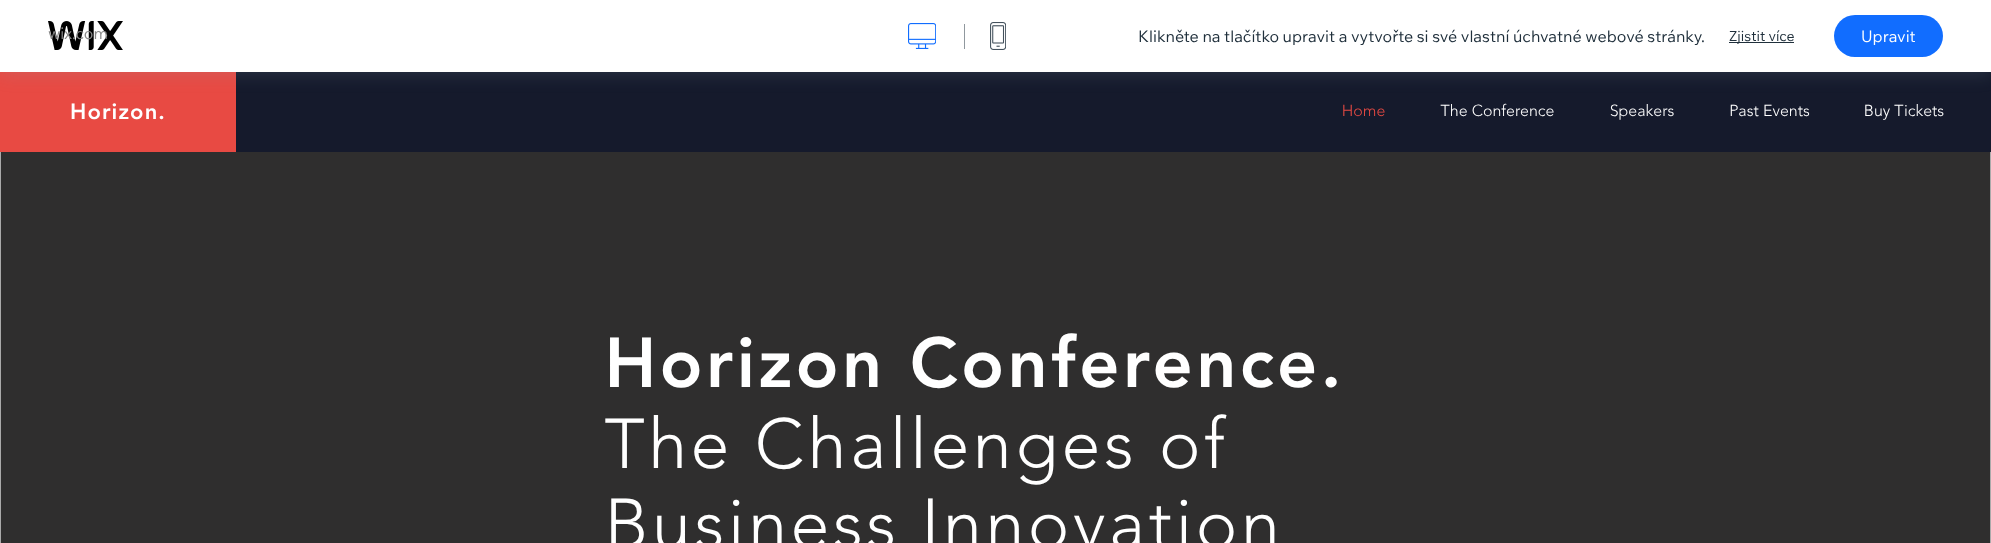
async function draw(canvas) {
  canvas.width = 1991;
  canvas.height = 543;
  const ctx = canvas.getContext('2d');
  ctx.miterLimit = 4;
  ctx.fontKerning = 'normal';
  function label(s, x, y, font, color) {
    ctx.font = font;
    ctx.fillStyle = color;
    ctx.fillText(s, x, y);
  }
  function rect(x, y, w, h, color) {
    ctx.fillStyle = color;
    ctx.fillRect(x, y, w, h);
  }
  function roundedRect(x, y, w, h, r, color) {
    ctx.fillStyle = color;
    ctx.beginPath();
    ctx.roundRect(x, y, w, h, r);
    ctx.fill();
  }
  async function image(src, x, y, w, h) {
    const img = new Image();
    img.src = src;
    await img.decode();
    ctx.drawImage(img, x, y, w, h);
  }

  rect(0, 0, 1991, 543, '#fff');
  await image('assets/img4.png', 0, 72, 1991, 471);
  ctx.fillStyle = '#81a2b633';
  ctx.filter = 'blur(9px)';
  ctx.beginPath();
  ctx.rect(0, 2, 1991, 72);
  ctx.fill();
  ctx.filter = 'none';
  rect(0, 0, 1991, 72, '#fff');
  await image('assets/img1.png', 48, 21, 75, 29);
  label('wix.com', 48, 39, '16px Wix Madefor Text', '#888');
  await image('assets/img2.png', 908, 23, 28, 26);
  rect(964, 24, 1, 25, '#90989e');
  await image('assets/img3.png', 990, 22, 16, 28);
  label('Klikněte na tlačítko upravit a vytvořte si své vlastní úchvatné webové stránky.', 1138, 42, '16px Wix Madefor Text', '#20303c');
  rect(1729, 42, 65, 1, '#20303c');
  label('Zjistit více', 1729, 41, '14px Wix Madefor Text', '#20303c');
  roundedRect(1834, 15, 109, 42, 21, '#116dff');
  label('Upravit', 1861, 42, '16px Wix Madefor Text', '#fff');
}

draw(document.querySelector('canvas'));
